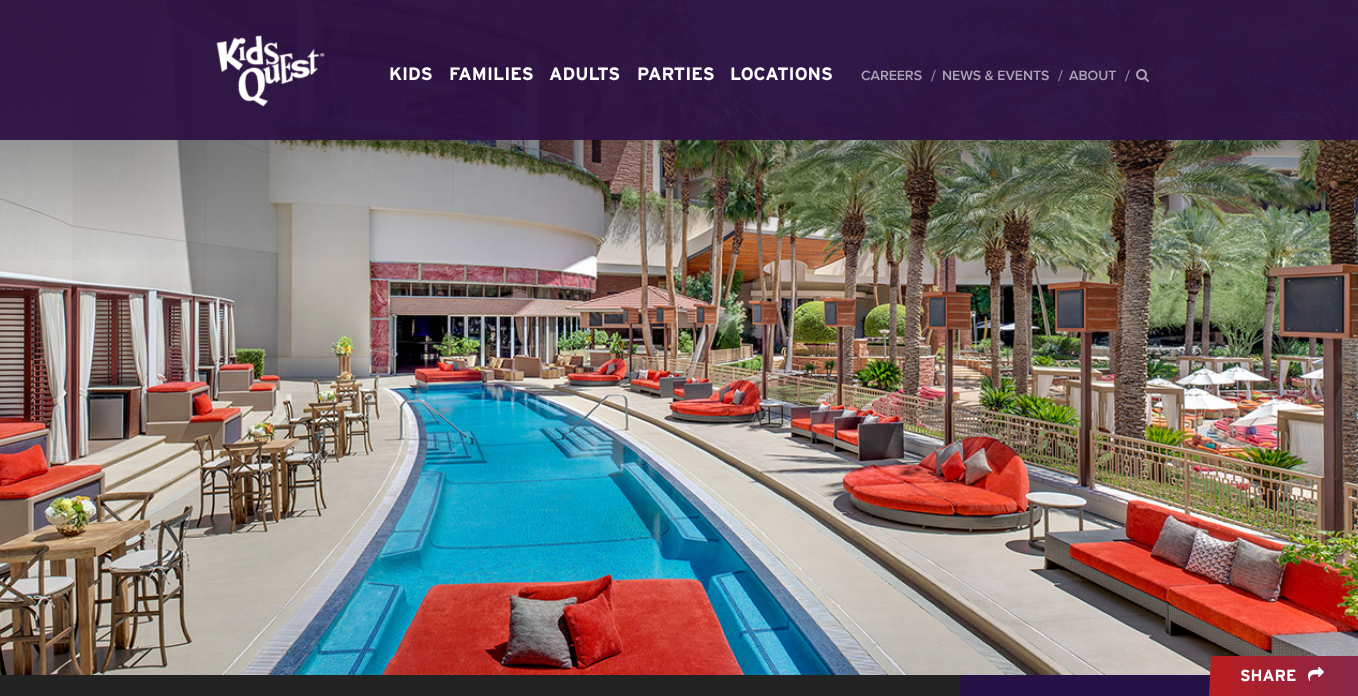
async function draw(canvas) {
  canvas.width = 1358;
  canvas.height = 696;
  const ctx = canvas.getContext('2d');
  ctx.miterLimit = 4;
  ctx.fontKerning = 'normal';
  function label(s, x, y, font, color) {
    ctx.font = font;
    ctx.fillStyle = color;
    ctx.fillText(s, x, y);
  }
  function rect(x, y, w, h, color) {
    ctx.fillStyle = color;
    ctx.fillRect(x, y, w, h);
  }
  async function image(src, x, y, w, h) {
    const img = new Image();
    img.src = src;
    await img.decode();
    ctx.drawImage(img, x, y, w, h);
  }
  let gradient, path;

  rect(0, 0, 1358, 696, '#222');
  await image('assets/img1.png', 0, 0, 1358, 675);
  gradient = ctx.createLinearGradient(679, 0, 679, 675);
  gradient.addColorStop(0, '#2222224d');
  gradient.addColorStop(0.2, '#2222224d');
  gradient.addColorStop(0.4, '#22222200');
  gradient.addColorStop(1, '#ffffff00');
  ctx.fillStyle = gradient;
  ctx.fillRect(0, 0, 1358, 260);
  ctx.fillStyle = '#251146';
  path = new Path2D('M961 675H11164L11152 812H949Z');
  ctx.fill(path);
  rect(0, 0, 1358, 140, '#2d1243f2');
  await image('assets/img2.png', 216, 35, 109, 72);
  label('KIDS', 389, 80, 'bold 18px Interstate', '#fff');
  label('FAMILIES', 449, 80, 'bold 18px Interstate', '#fff');
  label('ADULTS', 549, 80, 'bold 18px Interstate', '#fff');
  label('PARTIES', 637, 80, 'bold 18px Interstate', '#fff');
  label('LOCATIONS', 730, 80, 'bold 18px Interstate', '#fff');
  label('CAREERS', 861, 80, '600 14px Proxima Nova', '#aba1b4');
  label('/', 931, 81, '16px Proxima Nova', '#aba1b4');
  label('NEWS & EVENTS', 942, 80, '600 14px Proxima Nova', '#aba1b4');
  label('/', 1058, 81, '16px Proxima Nova', '#aba1b4');
  label('ABOUT', 1069, 80, '600 14px Proxima Nova', '#aba1b4');
  label('/', 1125, 81, '16px Proxima Nova', '#aba1b4');
  await image('assets/img3.png', 1136, 69, 13, 13);
  gradient = ctx.createLinearGradient(1210, 676, 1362, 676);
  gradient.addColorStop(0.01, '#b91d1f');
  gradient.addColorStop(0.99, '#87274a');
  ctx.fillStyle = gradient;
  path = new Path2D('M1211 656H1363L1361 696H1209Z');
  ctx.fill(path);
  label('SHARE', 1240, 681, 'bold 16px Interstate', '#fff');
  await image('assets/img4.png', 1308, 666, 16, 16);
}

draw(document.querySelector('canvas'));
